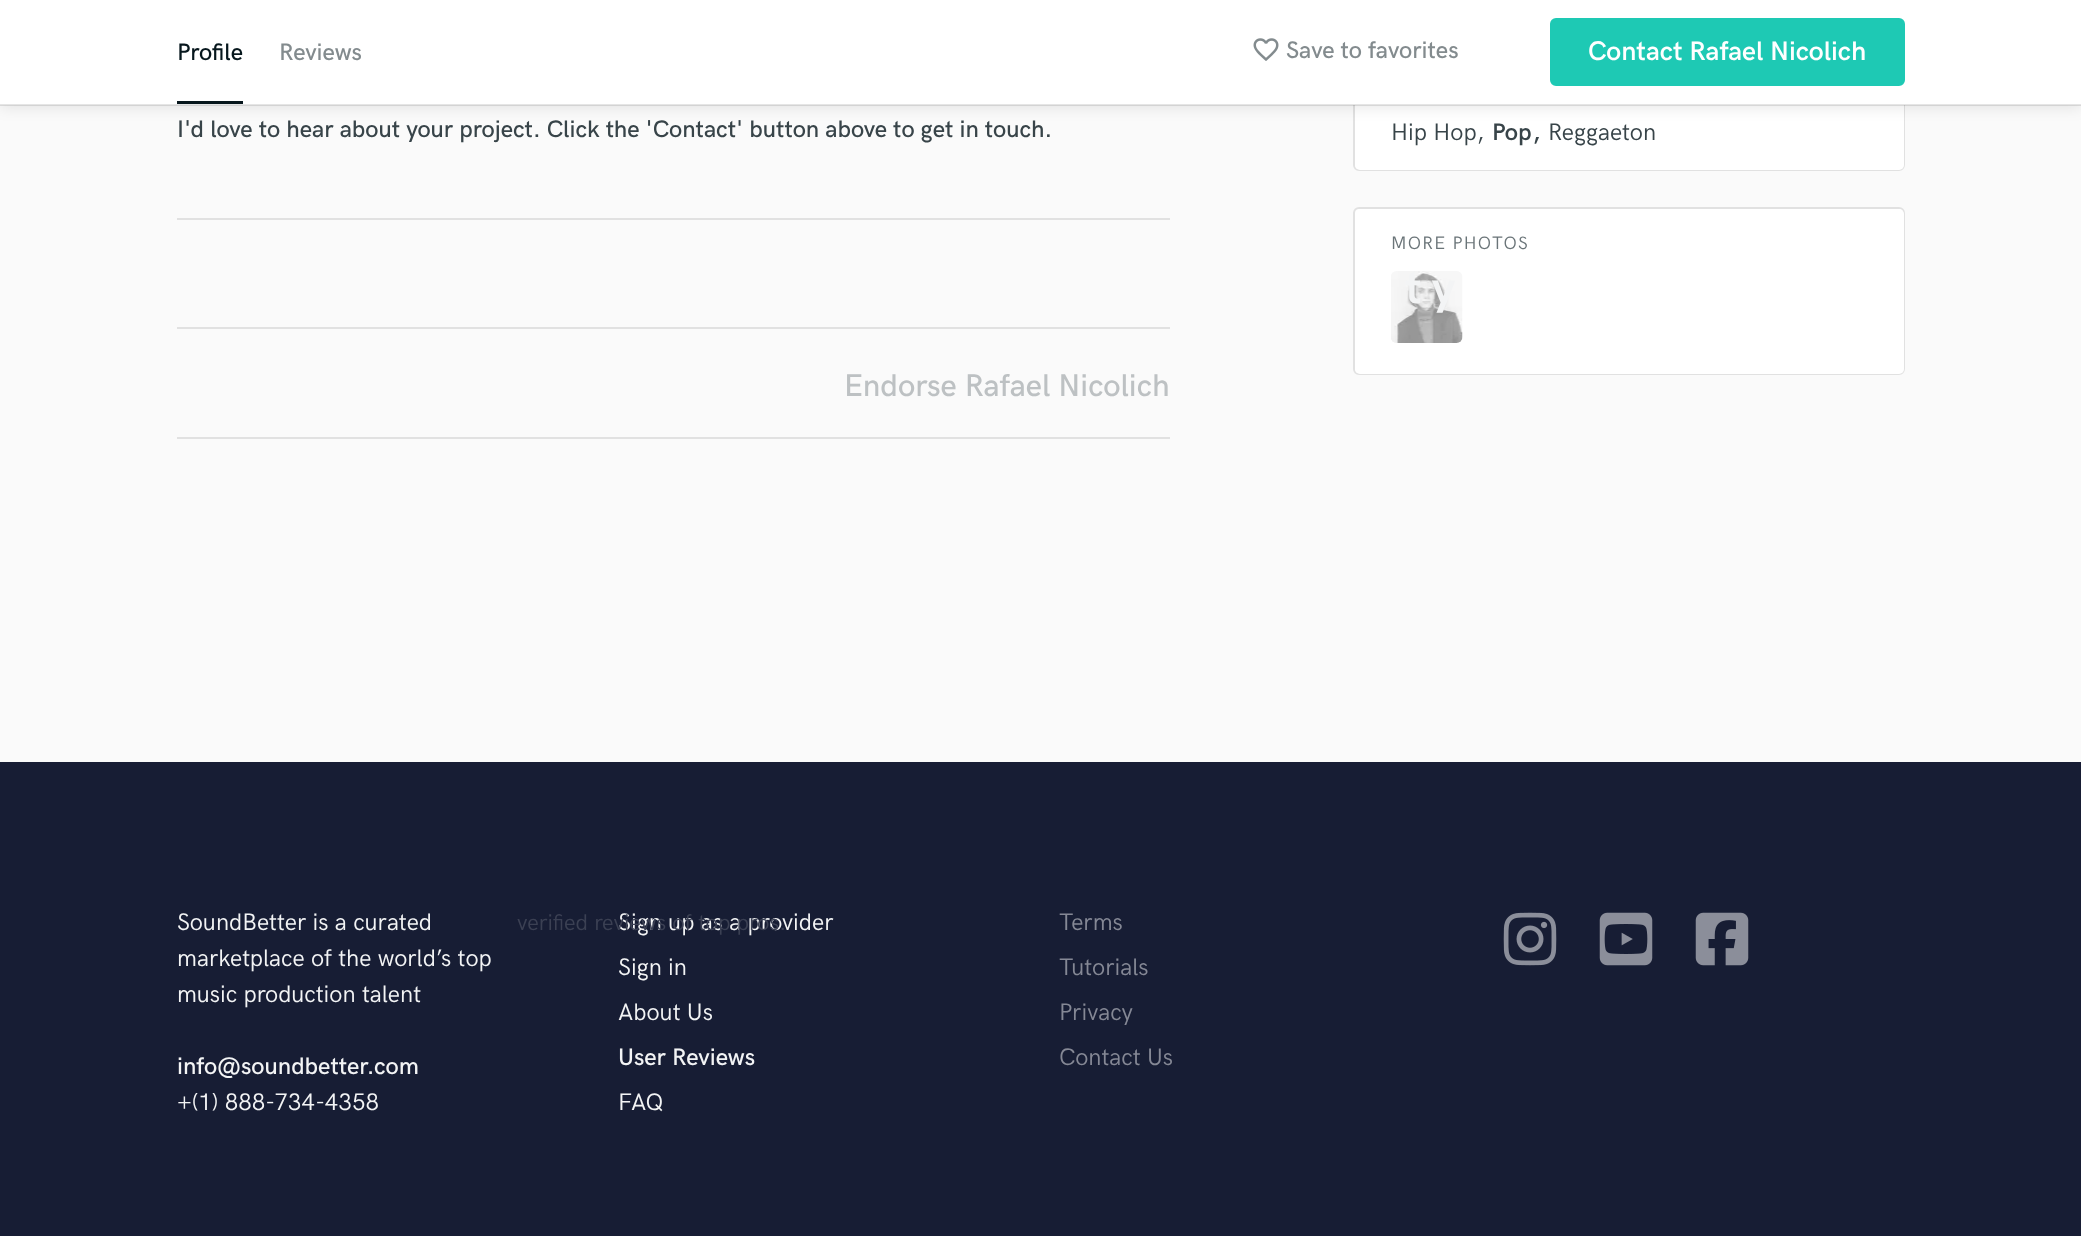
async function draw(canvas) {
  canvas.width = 2081;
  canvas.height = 1236;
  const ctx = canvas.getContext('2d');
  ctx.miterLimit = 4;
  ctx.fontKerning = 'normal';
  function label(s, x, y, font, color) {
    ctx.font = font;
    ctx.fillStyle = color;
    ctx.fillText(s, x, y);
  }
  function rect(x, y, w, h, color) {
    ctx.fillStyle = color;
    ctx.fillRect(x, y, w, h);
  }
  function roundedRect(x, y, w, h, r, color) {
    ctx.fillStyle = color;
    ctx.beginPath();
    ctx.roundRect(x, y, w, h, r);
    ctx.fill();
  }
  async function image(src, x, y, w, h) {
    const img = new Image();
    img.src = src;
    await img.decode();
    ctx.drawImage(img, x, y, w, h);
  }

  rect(0, 0, 2081, 1236, '#171d34');
  rect(0, 105, 2081, 657, '#fafafa');
  ctx.beginPath();
  ctx.roundRect(1354, 52, 550, 118, 5);
  ctx.strokeStyle = '#e1e1e1';
  ctx.lineWidth = 2;
  ctx.stroke();
  roundedRect(1355, 53, 549, 117, 5, '#fff');
  ctx.fillStyle = '#0000001a';
  ctx.filter = 'blur(7.5px)';
  ctx.beginPath();
  ctx.rect(0, 2, 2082, 105);
  ctx.fill();
  ctx.filter = 'none';
  rect(0, 0, 2081, 105, '#fff');
  rect(0, 104, 2081, 2, '#0000001a');
  label('Profile', 177, 60, '500 24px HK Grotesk', '#07171d');
  rect(177, 101, 66, 3, '#07171d');
  label('Reviews', 279, 60, '500 24px HK Grotesk', '#838b8e');
  await image('assets/img1.png', 1253, 38, 26, 23);
  label('Save to favorites', 1286, 58, '500 24px HK Grotesk', '#838b8e');
  ctx.fillStyle = '#1ec9b4';
  ctx.beginPath();
  ctx.roundRect(1551.5, 19.5, 352, 65, 4.5);
  ctx.fill();
  ctx.strokeStyle = '#1ec9b4';
  ctx.lineWidth = 3;
  ctx.stroke();
  label('Contact Rafael Nicolich', 1588, 60, '600 27px HK Grotesk', '#fff');
  rect(177, 218, 993, 2, '#e1e1e1');
  label('I\'d love to hear about your project. Click the \'Contact\' button above to get in touch.', 177, 137, '500 24px HK Grotesk', '#384449');
  rect(177, 327, 993, 2, '#e1e1e1');
  rect(177, 437, 993, 2, '#e1e1e1');
  label('Endorse Rafael Nicolich', 844, 396, '500 31.5px HK Grotesk', '#bdc1c3');
  label('Hip Hop', 1391, 140, '24px HK Grotesk', '#384449');
  label(',', 1477, 140, '24px HK Grotesk', '#384449');
  label('Pop', 1492, 140, '600 24px HK Grotesk', '#384449');
  label(',', 1533, 140, '600 24px HK Grotesk', '#384449');
  label('Reggaeton', 1548, 140, '24px HK Grotesk', '#384449');
  ctx.beginPath();
  ctx.roundRect(1354, 208, 550, 166, 5);
  ctx.strokeStyle = '#e1e1e1';
  ctx.lineWidth = 2;
  ctx.stroke();
  roundedRect(1355, 209, 549, 165, 5, '#fff');
  ctx.letterSpacing = '1.25px';
  label('MORE PHOTOS', 1391, 249, '18px HK Grotesk', '#6a7478');
  await image('assets/img2.png', 1391, 271, 72, 72);
  ctx.letterSpacing = '-0.5px';
  label('t y', 1405, 303, 'bold 46px HK Grotesk', '#f3f4f5');
  ctx.letterSpacing = '0px';
  label('Sign up as a provider', 618, 930, '24px HK Grotesk', '#f3f4f5');
  label('verified reviews of top pros.', 517, 930, '22.75px HK Grotesk', '#3b4053');
  label('SoundBetter is a curated', 177, 930, '24px HK Grotesk', '#f3f4f5');
  label('marketplace of the world’s top', 177, 966, '24px HK Grotesk', '#f3f4f5');
  label('music production talent', 177, 1002, '24px HK Grotesk', '#f3f4f5');
  label('info@soundbetter.com', 177, 1074, '500 24px HK Grotesk', '#f3f4f5');
  label('+(1) 888-734-4358', 177, 1110, '24px HK Grotesk', '#f3f4f5');
  label('Sign in', 618, 975, '24px HK Grotesk', '#f3f4f5');
  label('About Us', 618, 1020, '24px HK Grotesk', '#f3f4f5');
  label('User Reviews', 618, 1065, '500 24px HK Grotesk', '#f3f4f5');
  label('FAQ', 618, 1110, '24px HK Grotesk', '#f3f4f5');
  label('Terms', 1059, 930, '24px HK Grotesk', '#858895');
  label('Tutorials', 1059, 975, '24px HK Grotesk', '#858895');
  label('Privacy', 1059, 1020, '24px HK Grotesk', '#858895');
  label('Contact Us', 1059, 1065, '24px HK Grotesk', '#858895');
  await image('assets/img3.png', 1503, 912, 54, 54);
  await image('assets/img4.png', 1599, 912, 54, 54);
  await image('assets/img5.png', 1695, 912, 54, 54);
}

draw(document.querySelector('canvas'));
